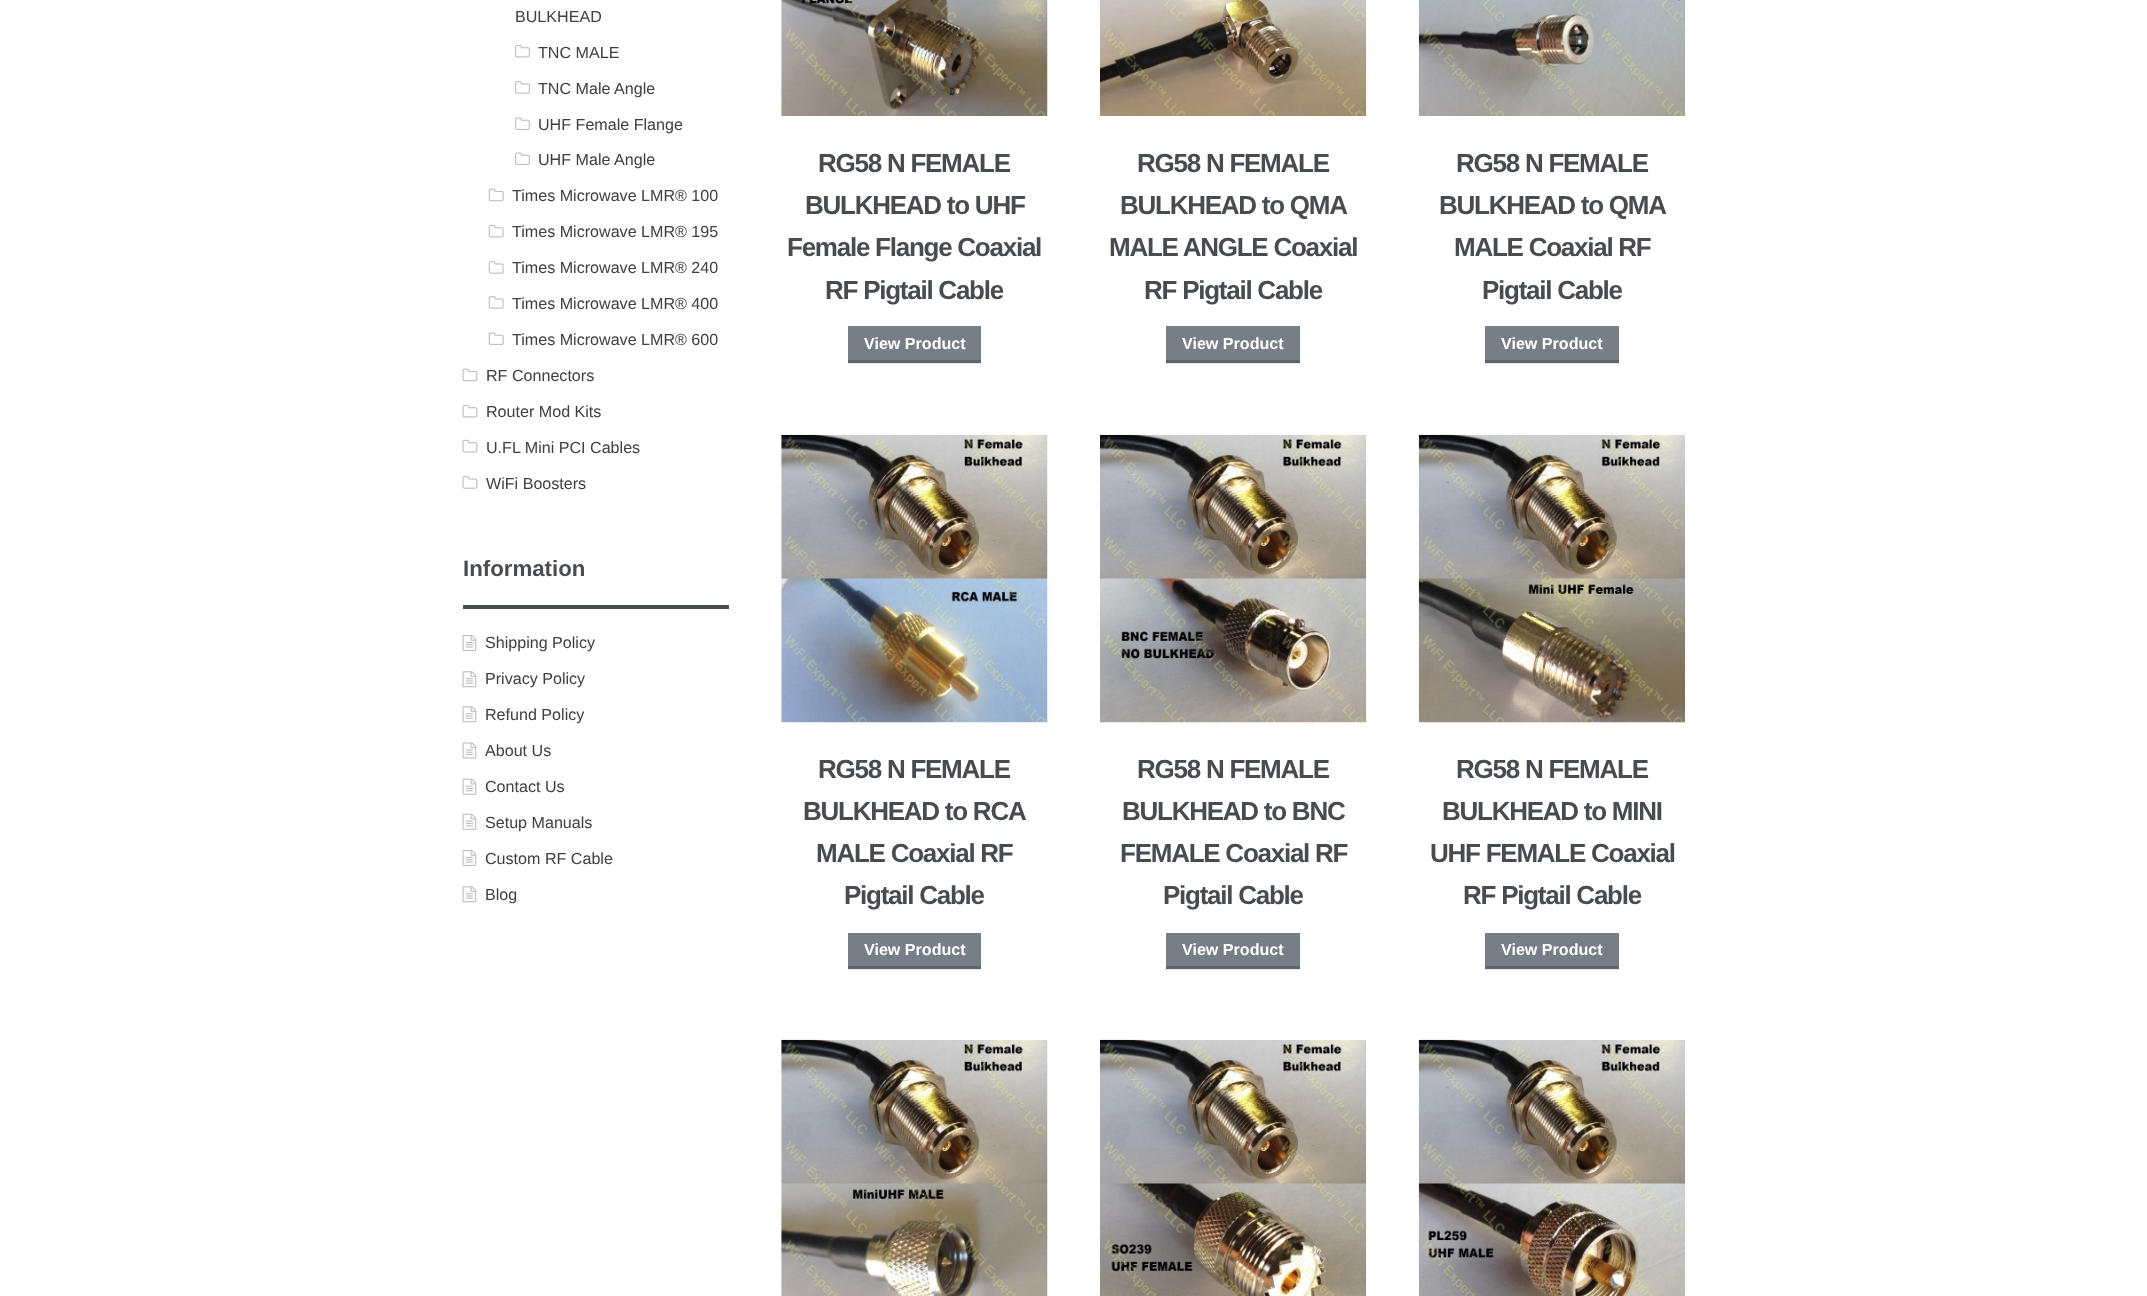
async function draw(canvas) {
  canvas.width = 2147;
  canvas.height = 1296;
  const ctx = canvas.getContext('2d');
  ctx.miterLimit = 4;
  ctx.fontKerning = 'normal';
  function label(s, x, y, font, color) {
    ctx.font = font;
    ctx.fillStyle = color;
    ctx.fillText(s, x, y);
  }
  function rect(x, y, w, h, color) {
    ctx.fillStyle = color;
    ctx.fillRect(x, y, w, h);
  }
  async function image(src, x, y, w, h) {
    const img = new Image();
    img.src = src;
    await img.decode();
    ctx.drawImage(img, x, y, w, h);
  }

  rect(0, 0, 2147, 1296, '#fff');
  label('BULKHEAD', 515, 22, '16.1px Liberation Sans', '#404040');
  await image('assets/img1.png', 515, 44, 15, 14);
  label('TNC MALE', 538, 58, '16.1px Liberation Sans', '#404040');
  await image('assets/img2.png', 515, 81, 15, 13);
  label('TNC Male Angle', 538, 94, '16.1px Liberation Sans', '#404040');
  await image('assets/img3.png', 515, 117, 15, 13);
  label('UHF Female Flange', 538, 130, '16.1px Liberation Sans', '#404040');
  await image('assets/img3.png', 515, 152, 15, 13);
  label('UHF Male Angle', 538, 165, '16.1px Liberation Sans', '#404040');
  await image('assets/img4.png', 488, 188, 16, 14);
  label('Times Microwave LMR® 100', 512, 201, '16.1px Liberation Sans', '#404040');
  await image('assets/img5.png', 488, 224, 16, 14);
  label('Times Microwave LMR® 195', 512, 237, '16.1px Liberation Sans', '#404040');
  await image('assets/img6.png', 488, 261, 16, 13);
  label('Times Microwave LMR® 240', 512, 273, '16.1px Liberation Sans', '#404040');
  await image('assets/img6.png', 488, 296, 16, 13);
  label('Times Microwave LMR® 400', 512, 309, '16.1px Liberation Sans', '#404040');
  await image('assets/img7.png', 488, 332, 16, 13);
  label('Times Microwave LMR® 600', 512, 345, '16.1px Liberation Sans', '#404040');
  await image('assets/img8.png', 462, 368, 16, 14);
  label('RF Connectors', 486, 381, '16.1px Liberation Sans', '#404040');
  await image('assets/img9.png', 462, 404, 16, 14);
  label('Router Mod Kits', 486, 417, '16.1px Liberation Sans', '#404040');
  await image('assets/img9.png', 462, 439, 16, 14);
  label('U.FL Mini PCI Cables', 486, 453, '16.1px Liberation Sans', '#404040');
  await image('assets/img10.png', 462, 476, 16, 13);
  label('WiFi Boosters', 486, 489, '16.1px Liberation Sans', '#404040');
  rect(463, 605, 266, 4, '#484c51');
  label('Information', 463, 576, 'bold 22.25px Liberation Sans', '#484c51');
  await image('assets/img11.png', 462, 635, 15, 16);
  label('Shipping Policy', 485, 648, '16.1px Liberation Sans', '#404040');
  await image('assets/img12.png', 462, 671, 15, 17);
  label('Privacy Policy', 485, 684, '16.1px Liberation Sans', '#404040');
  await image('assets/img12.png', 462, 706, 15, 17);
  label('Refund Policy', 485, 720, '16.1px Liberation Sans', '#404040');
  await image('assets/img13.png', 462, 742, 15, 17);
  label('About Us', 485, 756, '16.1px Liberation Sans', '#404040');
  await image('assets/img14.png', 462, 778, 15, 17);
  label('Contact Us', 485, 792, '16.1px Liberation Sans', '#404040');
  await image('assets/img14.png', 462, 813, 15, 17);
  label('Setup Manuals', 485, 828, '16.1px Liberation Sans', '#404040');
  await image('assets/img11.png', 462, 850, 15, 16);
  label('Custom RF Cable', 485, 864, '16.1px Liberation Sans', '#404040');
  await image('assets/img12.png', 462, 886, 15, 17);
  label('Blog', 485, 900, '16.1px Liberation Sans', '#404040');
  await image('assets/img15.png', 781, 0, 267, 116);
  ctx.letterSpacing = '-1.25px';
  label('RG58 N FEMALE', 818, 172, 'bold 26px Liberation Sans', '#484c51');
  label('BULKHEAD to UHF', 805, 214, 'bold 26px Liberation Sans', '#484c51');
  label('Female Flange Coaxial', 787, 256, 'bold 26px Liberation Sans', '#484c51');
  label('RF Pigtail Cable', 825, 299, 'bold 26px Liberation Sans', '#484c51');
  ctx.fillStyle = '#0000001a';
  ctx.filter = 'blur(0.5px)';
  ctx.beginPath();
  ctx.rect(848, 328, 133, 36);
  ctx.fill();
  ctx.filter = 'none';
  rect(848, 326, 133, 34, '#787e87');
  rect(848, 360, 133, 3, '#60656c');
  ctx.letterSpacing = '0px';
  label('View Product', 864, 349, 'bold 16.1px Liberation Sans', '#fff');
  await image('assets/img16.png', 1100, 0, 267, 116);
  ctx.letterSpacing = '-1.25px';
  label('RG58 N FEMALE', 1137, 172, 'bold 26px Liberation Sans', '#484c51');
  label('BULKHEAD to QMA', 1120, 214, 'bold 26px Liberation Sans', '#484c51');
  label('MALE ANGLE Coaxial', 1109, 256, 'bold 26px Liberation Sans', '#484c51');
  label('RF Pigtail Cable', 1144, 299, 'bold 26px Liberation Sans', '#484c51');
  ctx.fillStyle = '#0000001a';
  ctx.filter = 'blur(0.5px)';
  ctx.beginPath();
  ctx.rect(1166, 328, 134, 36);
  ctx.fill();
  ctx.filter = 'none';
  rect(1166, 326, 134, 34, '#787e87');
  rect(1166, 360, 134, 3, '#60656c');
  ctx.letterSpacing = '0px';
  label('View Product', 1182, 349, 'bold 16.1px Liberation Sans', '#fff');
  await image('assets/img17.png', 1418, 0, 267, 116);
  ctx.letterSpacing = '-1.25px';
  label('RG58 N FEMALE', 1456, 172, 'bold 26px Liberation Sans', '#484c51');
  label('BULKHEAD to QMA', 1439, 214, 'bold 26px Liberation Sans', '#484c51');
  label('MALE Coaxial RF', 1454, 256, 'bold 26px Liberation Sans', '#484c51');
  label('Pigtail Cable', 1482, 299, 'bold 26px Liberation Sans', '#484c51');
  ctx.fillStyle = '#0000001a';
  ctx.filter = 'blur(0.5px)';
  ctx.beginPath();
  ctx.rect(1485, 328, 134, 36);
  ctx.fill();
  ctx.filter = 'none';
  rect(1485, 326, 134, 34, '#787e87');
  rect(1485, 360, 134, 3, '#60656c');
  ctx.letterSpacing = '0px';
  label('View Product', 1501, 349, 'bold 16.1px Liberation Sans', '#fff');
  await image('assets/img18.png', 781, 434, 267, 289);
  ctx.letterSpacing = '-1.25px';
  label('RG58 N FEMALE', 818, 778, 'bold 26px Liberation Sans', '#484c51');
  label('BULKHEAD to RCA', 803, 820, 'bold 26px Liberation Sans', '#484c51');
  label('MALE Coaxial RF', 816, 862, 'bold 26px Liberation Sans', '#484c51');
  label('Pigtail Cable', 844, 904, 'bold 26px Liberation Sans', '#484c51');
  ctx.fillStyle = '#0000001a';
  ctx.filter = 'blur(0.5px)';
  ctx.beginPath();
  ctx.rect(848, 934, 133, 36);
  ctx.fill();
  ctx.filter = 'none';
  rect(848, 933, 133, 33, '#787e87');
  rect(848, 966, 133, 3, '#60656c');
  ctx.letterSpacing = '0px';
  label('View Product', 864, 955, 'bold 16.1px Liberation Sans', '#fff');
  await image('assets/img19.png', 1100, 434, 267, 289);
  ctx.letterSpacing = '-1.25px';
  label('RG58 N FEMALE', 1137, 778, 'bold 26px Liberation Sans', '#484c51');
  label('BULKHEAD to BNC', 1122, 820, 'bold 26px Liberation Sans', '#484c51');
  label('FEMALE Coaxial RF', 1120, 862, 'bold 26px Liberation Sans', '#484c51');
  label('Pigtail Cable', 1163, 904, 'bold 26px Liberation Sans', '#484c51');
  ctx.fillStyle = '#0000001a';
  ctx.filter = 'blur(0.5px)';
  ctx.beginPath();
  ctx.rect(1166, 934, 134, 36);
  ctx.fill();
  ctx.filter = 'none';
  rect(1166, 933, 134, 33, '#787e87');
  rect(1166, 966, 134, 3, '#60656c');
  ctx.letterSpacing = '0px';
  label('View Product', 1182, 955, 'bold 16.1px Liberation Sans', '#fff');
  await image('assets/img20.png', 1418, 434, 267, 289);
  ctx.letterSpacing = '-1.25px';
  label('RG58 N FEMALE', 1456, 778, 'bold 26px Liberation Sans', '#484c51');
  label('BULKHEAD to MINI', 1442, 820, 'bold 26px Liberation Sans', '#484c51');
  label('UHF FEMALE Coaxial', 1430, 862, 'bold 26px Liberation Sans', '#484c51');
  label('RF Pigtail Cable', 1463, 904, 'bold 26px Liberation Sans', '#484c51');
  ctx.fillStyle = '#0000001a';
  ctx.filter = 'blur(0.5px)';
  ctx.beginPath();
  ctx.rect(1485, 934, 134, 36);
  ctx.fill();
  ctx.filter = 'none';
  rect(1485, 933, 134, 33, '#787e87');
  rect(1485, 966, 134, 3, '#60656c');
  ctx.letterSpacing = '0px';
  label('View Product', 1501, 955, 'bold 16.1px Liberation Sans', '#fff');
  await image('assets/img21.png', 781, 1039, 267, 257);
  await image('assets/img22.png', 1100, 1039, 267, 257);
  await image('assets/img23.png', 1418, 1039, 267, 257);
}

draw(document.querySelector('canvas'));
